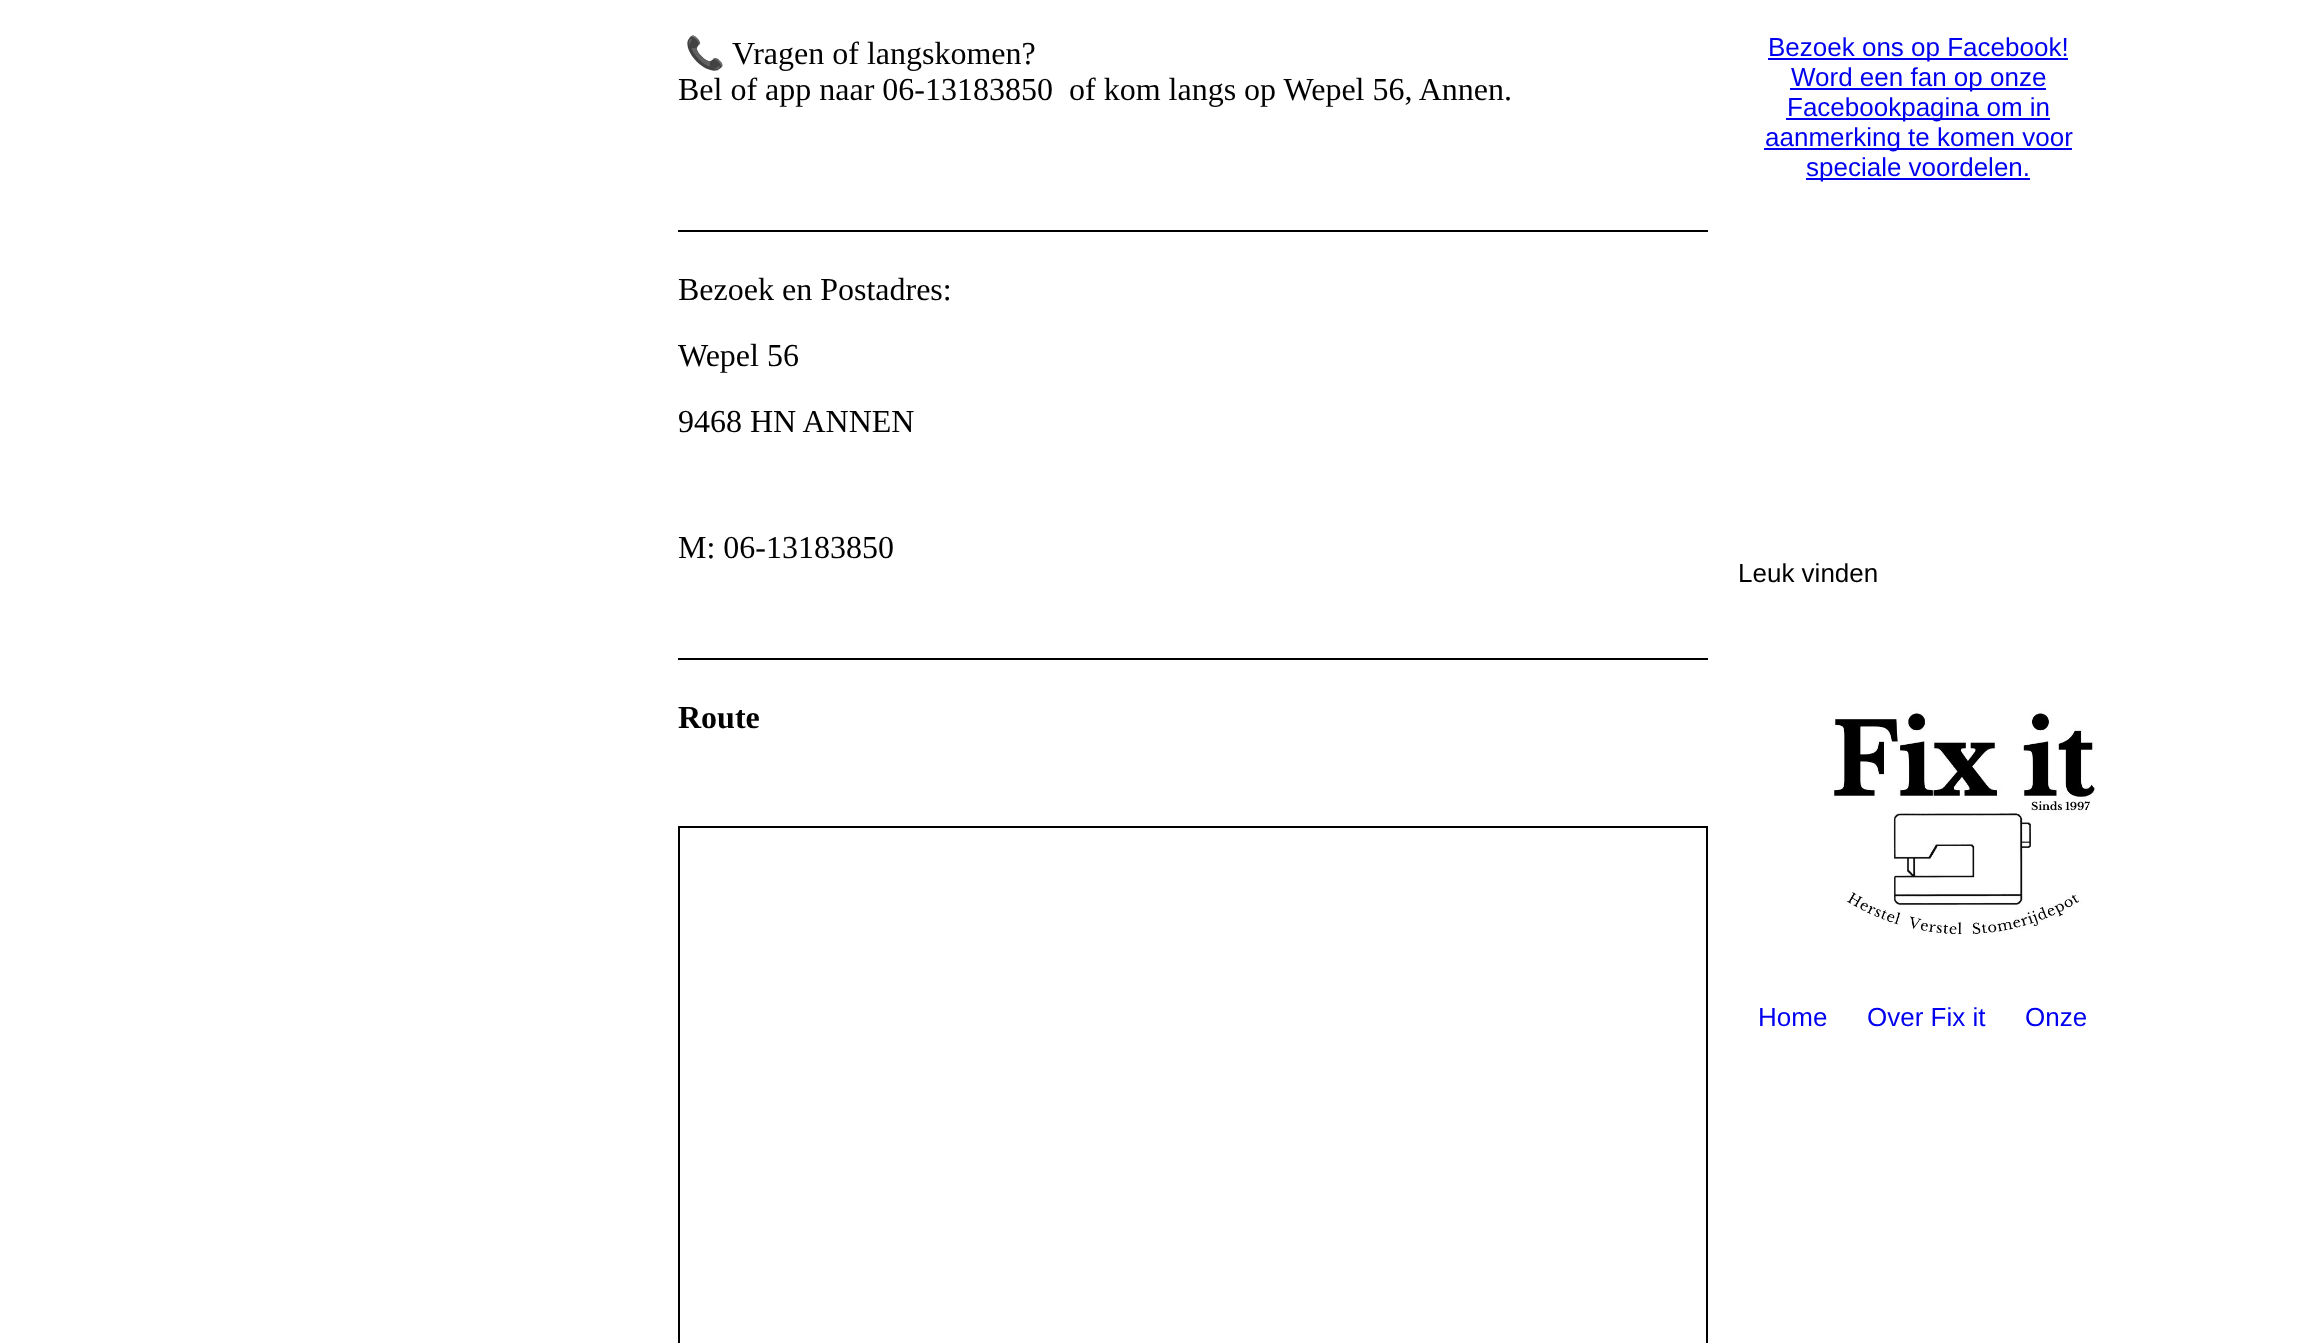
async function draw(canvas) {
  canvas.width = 2316;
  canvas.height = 1343;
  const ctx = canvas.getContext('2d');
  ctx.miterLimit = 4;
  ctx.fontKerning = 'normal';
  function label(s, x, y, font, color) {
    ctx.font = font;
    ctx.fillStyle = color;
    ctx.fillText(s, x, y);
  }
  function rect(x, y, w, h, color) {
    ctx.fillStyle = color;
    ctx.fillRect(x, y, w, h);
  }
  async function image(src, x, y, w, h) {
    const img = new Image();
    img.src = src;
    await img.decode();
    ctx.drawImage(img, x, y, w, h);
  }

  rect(0, 0, 2316, 1343, '#fff');
  label('📞', 685, 64, '32px Noto Color Emoji', '#000');
  label('Vragen of langskomen?', 732, 64, '32px Liberation Serif', '#000');
  label('Bel of app naar 06-13183850  of kom langs op Wepel 56, Annen.', 678, 100, '32px Liberation Serif', '#000');
  rect(678, 230, 1030, 2, '#000');
  label('Bezoek en Postadres:', 678, 300, '32px Liberation Serif', '#000');
  label('Wepel 56', 678, 366, '32px Liberation Serif', '#000');
  label('9468 HN ANNEN', 678, 432, '32px Liberation Serif', '#000');
  label('M: 06-13183850', 678, 558, '32px Liberation Serif', '#000');
  rect(678, 658, 1030, 2, '#000');
  label('Route', 678, 728, 'bold 32px Liberation Serif', '#000');
  ctx.strokeStyle = '#000';
  ctx.lineWidth = 2;
  ctx.strokeRect(679, 827, 1028, 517);
  rect(1768, 58, 300, 2, '#00e');
  label('Bezoek ons op Facebook!', 1768, 56, '26px Liberation Sans', '#00e');
  rect(1790, 88, 256, 2, '#00e');
  label('Word een fan op onze', 1791, 86, '26px Liberation Sans', '#00e');
  rect(1786, 118, 264, 2, '#00e');
  label('Facebookpagina om in', 1787, 116, '26px Liberation Sans', '#00e');
  rect(1764, 148, 308, 2, '#00e');
  label('aanmerking te komen voor', 1765, 146, '26px Liberation Sans', '#00e');
  rect(1806, 178, 224, 2, '#00e');
  label('speciale voordelen.', 1806, 176, '26px Liberation Sans', '#00e');
  label('Leuk vinden', 1738, 582, '26px Liberation Sans', '#000');
  await image('assets/img1.png', 1833, 710, 263, 225);
  label('Home', 1758, 1026, '26px Liberation Sans', '#00e');
  label('Over Fix it', 1867, 1026, '26px Liberation Sans', '#00e');
  label('Onze', 2025, 1026, '26px Liberation Sans', '#00e');
}

draw(document.querySelector('canvas'));
